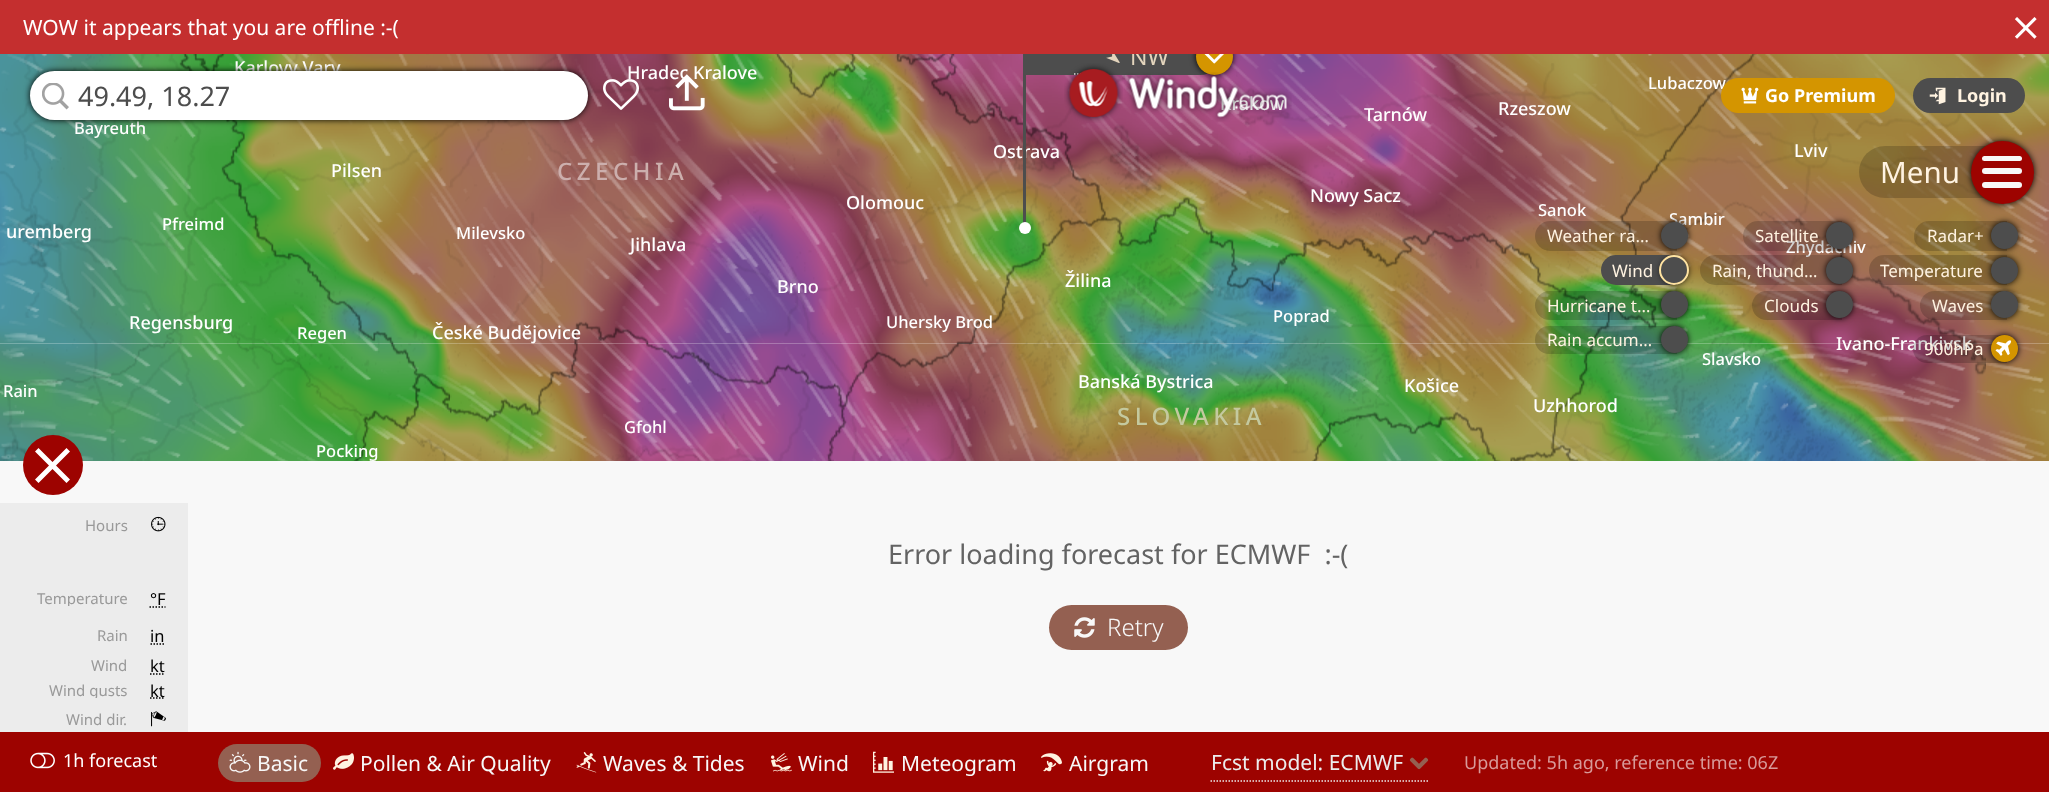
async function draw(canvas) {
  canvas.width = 2049;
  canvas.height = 792;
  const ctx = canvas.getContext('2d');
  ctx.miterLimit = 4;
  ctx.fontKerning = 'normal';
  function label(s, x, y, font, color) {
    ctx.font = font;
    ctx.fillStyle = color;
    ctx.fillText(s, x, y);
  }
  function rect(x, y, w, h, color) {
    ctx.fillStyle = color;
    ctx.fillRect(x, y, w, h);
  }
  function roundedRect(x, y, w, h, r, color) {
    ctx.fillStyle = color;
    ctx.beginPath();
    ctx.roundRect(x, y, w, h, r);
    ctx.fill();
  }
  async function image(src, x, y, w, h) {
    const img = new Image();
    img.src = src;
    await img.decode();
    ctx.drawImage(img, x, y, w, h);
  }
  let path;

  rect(0, 0, 2049, 792, '#fff');
  await image('assets/img14.png', 834, 343, 384, 118);
  await image('assets/img7.png', 834, 54, 384, 290);
  await image('assets/img15.png', 1218, 343, 384, 118);
  await image('assets/img8.png', 1218, 54, 384, 290);
  await image('assets/img11.png', 0, 343, 66, 118);
  await image('assets/img4.png', 0, 54, 66, 290);
  await image('assets/img12.png', 66, 343, 384, 118);
  await image('assets/img5.png', 66, 54, 384, 290);
  await image('assets/img13.png', 450, 343, 384, 118);
  await image('assets/img6.png', 450, 54, 384, 290);
  await image('assets/img16.png', 1602, 343, 384, 118);
  await image('assets/img9.png', 1602, 54, 384, 290);
  await image('assets/img17.png', 1986, 343, 63, 118);
  await image('assets/img10.png', 1986, 54, 63, 290);
  await image('assets/img18.png', 0, 54, 2049, 407);
  await image('assets/img28.png', 834, 343, 384, 118);
  await image('assets/img22.png', 834, 54, 384, 290);
  await image('assets/img29.png', 1218, 343, 384, 118);
  await image('assets/img23.png', 1218, 63, 384, 281);
  ctx.fillStyle = '#4d4d4d';
  ctx.beginPath();
  ctx.roundRect(1026, 32, 195, 43, [0, 21, 21, 0]);
  ctx.fill();
  label('NW', 1130, 65, '23px Noto Sans', '#e4d5bd');
  ctx.fillStyle = '#000';
  ctx.filter = 'blur(3px)';
  ctx.beginPath();
  ctx.roundRect(1196, 38, 37, 37, 18.5);
  ctx.fill();
  ctx.filter = 'none';
  ctx.fillStyle = '#d49500';
  ctx.beginPath();
  ctx.arc(1214.5, 56.5, 18.5, 0, 2 * Math.PI);
  ctx.fill();
  rect(0, 0, 2049, 54, '#c42f2f');
  label('WOW it appears that you are offline :-(', 23, 35, '21px Noto Sans', '#fff');
  await image('assets/img1.png', 2014, 17, 23, 22);
  label('Ostrava', 993, 158, '500 18px Noto Sans', '#fff');
  rect(1023, 54, 3, 173, '#4d4d4d');
  await image('assets/img2.png', 1106, 54, 14, 9);
  path = new Path2D('M1074 74H1099.5');
  ctx.strokeStyle = '#fff';
  ctx.lineWidth = 1.5;
  ctx.setLineDash([1.5, 1.5]);
  ctx.stroke(path);
  await image('assets/img3.png', 1204, 54, 20, 10);
  ctx.fillStyle = '#fff';
  ctx.beginPath();
  ctx.arc(1025, 228, 6, 0, 2 * Math.PI);
  ctx.fill();
  await image('assets/img19.png', 0, 54, 66, 264);
  await image('assets/img26.png', 66, 343, 384, 118);
  await image('assets/img20.png', 66, 54, 384, 290);
  await image('assets/img27.png', 450, 343, 384, 118);
  await image('assets/img21.png', 450, 54, 384, 290);
  await image('assets/img30.png', 1602, 343, 384, 118);
  await image('assets/img24.png', 1602, 54, 384, 290);
  await image('assets/img25.png', 0, 348, 66, 113);
  label('uremberg', 6, 238, '500 18px Noto Sans', '#fff');
  label('Karlovy Vary', 234, 74, '500 18px Noto Sans', '#fff');
  label('Bayreuth', 74, 134, '500 16.5px Noto Sans', '#fff');
  label('Pilsen', 331, 177, '500 18px Noto Sans', '#fff');
  label('Pfreimd', 162, 230, '500 16.5px Noto Sans', '#fff');
  label('Regensburg', 129, 329, '500 18px Noto Sans', '#fff');
  label('Regen', 297, 339, '500 16.5px Noto Sans', '#fff');
  label('Hradec Kralove', 627, 79, '500 18px Noto Sans', '#fff');
  ctx.letterSpacing = '4.5px';
  label('CZECHIA', 557, 180, '500 24px Noto Sans', '#ccafad');
  ctx.letterSpacing = '0px';
  label('Milevsko', 456, 239, '500 16.5px Noto Sans', '#fff');
  label('Jihlava', 630, 251, '500 18px Noto Sans', '#fff');
  label('Brno', 777, 293, '500 18px Noto Sans', '#fff');
  label('České Budějovice', 432, 339, '500 18px Noto Sans', '#fff');
  label('Olomouc', 846, 209, '500 18px Noto Sans', '#fff');
  label('Žilina', 1065, 287, '500 18px Noto Sans', '#fff');
  label('Uhersky Brod', 886, 328, '500 16.5px Noto Sans', '#fff');
  label('Krakow', 1220, 110, '500 18px Noto Sans', '#fff');
  label('Tarnów', 1364, 121, '500 18px Noto Sans', '#fff');
  label('Rzeszow', 1498, 115, '500 18px Noto Sans', '#fff');
  label('Nowy Sacz', 1310, 202, '500 18px Noto Sans', '#fff');
  label('Sanok', 1538, 216, '500 16.5px Noto Sans', '#fff');
  label('Poprad', 1273, 322, '500 16.5px Noto Sans', '#fff');
  label('Lubaczow', 1648, 89, '500 16.5px Noto Sans', '#fff');
  label('Lviv', 1794, 157, '500 18px Noto Sans', '#fff');
  label('Sambir', 1669, 225, '500 16.5px Noto Sans', '#fff');
  label('Zhydachiv', 1786, 253, '500 16.5px Noto Sans', '#fff');
  label('Ivano-Frankivsk', 1836, 350, '500 18px Noto Sans', '#fff');
  label('Slavsko', 1702, 365, '500 16.5px Noto Sans', '#fff');
  label('Rain', 3, 397, '500 16.5px Noto Sans', '#fff');
  label('Banská Bystrica', 1078, 388, '500 18px Noto Sans', '#fff');
  ctx.letterSpacing = '4.5px';
  label('SLOVAKIA', 1117, 425, '500 24px Noto Sans', '#c4c99f');
  ctx.letterSpacing = '0px';
  label('Košice', 1404, 392, '500 18px Noto Sans', '#fff');
  label('Uzhhorod', 1533, 412, '500 18px Noto Sans', '#fff');
  label('Gfohl', 624, 433, '500 16.5px Noto Sans', '#fff');
  label('Pocking', 316, 457, '500 16.5px Noto Sans', '#fff');
  ctx.fillStyle = '#000';
  ctx.filter = 'blur(3px)';
  ctx.beginPath();
  ctx.roundRect(30, 71, 558, 49, 24.5);
  ctx.fill();
  ctx.filter = 'none';
  roundedRect(30, 71, 558, 49, 24.5, '#fff');
  await image('assets/img31.png', 42, 83, 27, 27);
  label('49.49, 18.27', 78, 106, '27px Noto Sans', '#4d4d4d');
  await image('assets/img32.png', 603, 79, 36, 31);
  await image('assets/img33.png', 669, 74, 36, 37);
  await image('assets/img34.png', 1064, 63, 59, 60);
  await image('assets/img35.png', 1124, 72, 168, 50);
  roundedRect(1721, 78, 174, 35, 17.5, '#d49500');
  await image('assets/img36.png', 1741, 87, 18, 17);
  label('Go Premium', 1765, 102, 'bold 18px Noto Sans', '#fff');
  roundedRect(1913, 78, 112, 35, 17.5, '#4d4d4d');
  await image('assets/img37.png', 1929, 87, 17, 18);
  label('Login', 1957, 102, 'bold 18px Noto Sans', '#fff3e1');
  ctx.fillStyle = '#0000002e';
  ctx.beginPath();
  ctx.roundRect(1859, 146, 142, 52, [26, 0, 0, 26]);
  ctx.fill();
  label('Menu', 1880, 183, '29.5px Noto Sans', '#fff3e1');
  ctx.fillStyle = '#000';
  ctx.filter = 'blur(3px)';
  ctx.beginPath();
  ctx.roundRect(1971, 141, 63, 63, 31.5);
  ctx.fill();
  ctx.filter = 'none';
  ctx.fillStyle = '#9d0300';
  ctx.beginPath();
  ctx.arc(2002.5, 172.5, 31.5, 0, 2 * Math.PI);
  ctx.fill();
  roundedRect(1982, 156, 40, 5, 2.5, '#f8f8f8');
  roundedRect(1982, 168, 40, 6, 3, '#f8f8f8');
  roundedRect(1982, 182, 40, 6, 3, '#f8f8f8');
  ctx.fillStyle = '#0000002e';
  ctx.beginPath();
  ctx.roundRect(1535, 221, 142, 30, [15, 0, 0, 15]);
  ctx.fill();
  label('Weather ra…', 1547, 242, '17px Noto Sans', '#fff3e1');
  ctx.fillStyle = '#4d4d4d';
  ctx.beginPath();
  ctx.roundRect(1601, 255, 76, 30, [15, 0, 0, 15]);
  ctx.fill();
  ctx.fillStyle = '#000';
  ctx.filter = 'blur(3px)';
  ctx.beginPath();
  ctx.roundRect(1661, 222, 27, 27, 13.5);
  ctx.fill();
  ctx.filter = 'none';
  ctx.fillStyle = '#4d4d4d';
  ctx.beginPath();
  ctx.arc(1674.5, 235.5, 13.5, 0, 2 * Math.PI);
  ctx.fill();
  ctx.fillStyle = '#0000002e';
  ctx.beginPath();
  ctx.roundRect(1743, 221, 99, 30, [15, 0, 0, 15]);
  ctx.fill();
  label('Satellite', 1755, 242, '17px Noto Sans', '#fff3e1');
  ctx.fillStyle = '#0000002e';
  ctx.beginPath();
  ctx.roundRect(1700, 255, 142, 30, [15, 0, 0, 15]);
  ctx.fill();
  ctx.fillStyle = '#000';
  ctx.filter = 'blur(3px)';
  ctx.beginPath();
  ctx.roundRect(1826, 222, 27, 27, 13.5);
  ctx.fill();
  ctx.filter = 'none';
  ctx.fillStyle = '#4d4d4d';
  ctx.beginPath();
  ctx.arc(1839.5, 235.5, 13.5, 0, 2 * Math.PI);
  ctx.fill();
  ctx.fillStyle = '#0000002e';
  ctx.beginPath();
  ctx.roundRect(1914, 221, 93, 30, [15, 0, 0, 15]);
  ctx.fill();
  label('Radar+', 1927, 242, '17px Noto Sans', '#fff3e1');
  ctx.fillStyle = '#0000002e';
  ctx.beginPath();
  ctx.roundRect(1869, 255, 138, 30, [15, 0, 0, 15]);
  ctx.fill();
  ctx.fillStyle = '#000';
  ctx.filter = 'blur(3px)';
  ctx.beginPath();
  ctx.roundRect(1991, 222, 27, 27, 13.5);
  ctx.fill();
  ctx.filter = 'none';
  ctx.fillStyle = '#4d4d4d';
  ctx.beginPath();
  ctx.arc(2004.5, 235.5, 13.5, 0, 2 * Math.PI);
  ctx.fill();
  label('Wind', 1612, 277, '17px Noto Sans', '#fff3e1');
  ctx.fillStyle = '#0000002e';
  ctx.beginPath();
  ctx.roundRect(1535, 291, 142, 29, [14.5, 0, 0, 14.5]);
  ctx.fill();
  ctx.fillStyle = '#000';
  ctx.filter = 'blur(3px)';
  ctx.beginPath();
  ctx.roundRect(1661, 257, 27, 27, 13.5);
  ctx.fill();
  ctx.filter = 'none';
  ctx.fillStyle = '#4d4d4d';
  ctx.beginPath();
  ctx.arc(1674, 270, 14, 0, 2 * Math.PI);
  ctx.fill();
  ctx.strokeStyle = '#ffe3a1';
  ctx.lineWidth = 2;
  ctx.setLineDash([]);
  ctx.stroke();
  label('Rain, thund…', 1712, 277, '17px Noto Sans', '#fff3e1');
  ctx.fillStyle = '#0000002e';
  ctx.beginPath();
  ctx.roundRect(1752, 291, 90, 29, [14.5, 0, 0, 14.5]);
  ctx.fill();
  ctx.fillStyle = '#000';
  ctx.filter = 'blur(3px)';
  ctx.beginPath();
  ctx.roundRect(1826, 257, 27, 27, 13.5);
  ctx.fill();
  ctx.filter = 'none';
  ctx.fillStyle = '#4d4d4d';
  ctx.beginPath();
  ctx.arc(1839.5, 270.5, 13.5, 0, 2 * Math.PI);
  ctx.fill();
  label('Temperature', 1880, 277, '17px Noto Sans', '#fff3e1');
  ctx.fillStyle = '#0000002e';
  ctx.beginPath();
  ctx.roundRect(1920, 291, 87, 29, [14.5, 0, 0, 14.5]);
  ctx.fill();
  ctx.fillStyle = '#000';
  ctx.filter = 'blur(3px)';
  ctx.beginPath();
  ctx.roundRect(1991, 257, 27, 27, 13.5);
  ctx.fill();
  ctx.filter = 'none';
  ctx.fillStyle = '#4d4d4d';
  ctx.beginPath();
  ctx.arc(2004.5, 270.5, 13.5, 0, 2 * Math.PI);
  ctx.fill();
  label('Hurricane t…', 1547, 312, '17px Noto Sans', '#fff3e1');
  ctx.fillStyle = '#0000002e';
  ctx.beginPath();
  ctx.roundRect(1535, 326, 142, 28, [14, 0, 0, 14]);
  ctx.fill();
  ctx.fillStyle = '#000';
  ctx.filter = 'blur(3px)';
  ctx.beginPath();
  ctx.roundRect(1661, 291, 27, 27, 13.5);
  ctx.fill();
  ctx.filter = 'none';
  ctx.fillStyle = '#4d4d4d';
  ctx.beginPath();
  ctx.arc(1674.5, 304.5, 13.5, 0, 2 * Math.PI);
  ctx.fill();
  label('Clouds', 1764, 312, '17px Noto Sans', '#fff3e1');
  ctx.fillStyle = '#000';
  ctx.filter = 'blur(3px)';
  ctx.beginPath();
  ctx.roundRect(1826, 291, 27, 27, 13.5);
  ctx.fill();
  ctx.filter = 'none';
  ctx.fillStyle = '#4d4d4d';
  ctx.beginPath();
  ctx.arc(1839.5, 304.5, 13.5, 0, 2 * Math.PI);
  ctx.fill();
  label('Waves', 1932, 312, '17px Noto Sans', '#fff3e1');
  ctx.fillStyle = '#000';
  ctx.filter = 'blur(3px)';
  ctx.beginPath();
  ctx.roundRect(1991, 291, 27, 27, 13.5);
  ctx.fill();
  ctx.filter = 'none';
  ctx.fillStyle = '#4d4d4d';
  ctx.beginPath();
  ctx.arc(2004.5, 304.5, 13.5, 0, 2 * Math.PI);
  ctx.fill();
  label('Rain accum…', 1547, 346, '17px Noto Sans', '#fff3e1');
  ctx.fillStyle = '#000';
  ctx.filter = 'blur(3px)';
  ctx.beginPath();
  ctx.roundRect(1661, 326, 27, 27, 13.5);
  ctx.fill();
  ctx.filter = 'none';
  ctx.fillStyle = '#4d4d4d';
  ctx.beginPath();
  ctx.arc(1674.5, 339.5, 13.5, 0, 2 * Math.PI);
  ctx.fill();
  ctx.fillStyle = '#0000002e';
  ctx.beginPath();
  ctx.roundRect(1913, 335, 94, 28, [14, 0, 0, 14]);
  ctx.fill();
  label('900hPa', 1924, 355, '17px Noto Sans', '#fff3e1');
  ctx.fillStyle = '#000';
  ctx.filter = 'blur(3px)';
  ctx.beginPath();
  ctx.roundRect(1991, 335, 27, 27, 13.5);
  ctx.fill();
  ctx.filter = 'none';
  ctx.fillStyle = '#d49500';
  ctx.beginPath();
  ctx.arc(2004.5, 348.5, 13.5, 0, 2 * Math.PI);
  ctx.fill();
  await image('assets/img38.png', 1995, 340, 17, 16);
  rect(0, 461, 188, 42, '#f8f8f8');
  ctx.fillStyle = '#9d0300';
  ctx.beginPath();
  ctx.arc(53, 465, 30, 0, 2 * Math.PI);
  ctx.fill();
  ctx.fillStyle = '#fff';
  path = new Path2D('M70 451.5L66.5 448L52.5 462L38.5 448L35 451.5L49 465.5L35 479.5L38.5 483L52.5 469L66.5 483L70 479.5L56 465.5Z');
  ctx.fill(path);
  rect(188, 461, 1861, 271, '#f8f8f8');
  rect(0, 503, 188, 229, '#ececec');
  label('Hours', 85, 531, '15px Noto Sans', '#999');
  await image('assets/img39.png', 151, 516, 15, 16);
  ctx.save();
  ctx.beginPath();
  ctx.rect(0, 591, 128, 15);
  ctx.clip();
  label('Temperature', 37, 604, '15px Noto Sans', '#999');
  ctx.restore();
  label('°F', 150, 605, '16.5px Noto Sans', '#000');
  path = new Path2D('M149.5 607H165.5');
  ctx.strokeStyle = '#000';
  ctx.lineWidth = 1.5;
  ctx.setLineDash([1.5, 1.5]);
  ctx.stroke(path);
  label('Rain', 97, 641, '15px Noto Sans', '#999');
  label('in', 150, 642, '16.5px Noto Sans', '#000');
  path = new Path2D('M150.5 644H164.5');
  ctx.stroke(path);
  label('Wind', 91, 671, '15px Noto Sans', '#999');
  label('kt', 150, 672, '16.5px Noto Sans', '#000');
  path = new Path2D('M150 674H165');
  ctx.stroke(path);
  ctx.save();
  ctx.beginPath();
  ctx.rect(0, 683, 128, 15);
  ctx.clip();
  label('Wind gusts', 49, 696, '15px Noto Sans', '#999');
  ctx.restore();
  path = new Path2D('M150 698H165');
  ctx.stroke(path);
  label('kt', 150, 697, '16.5px Noto Sans', '#000');
  label('Wind dir.', 66, 725, '15px Noto Sans', '#999');
  await image('assets/img40.png', 151, 711, 15, 16);
  label('Error loading forecast for ECMWF  :-(', 888, 564, '27px Noto Sans', '#636363');
  roundedRect(1049, 605, 139, 45, 22.5, '#946051');
  await image('assets/img41.png', 1074, 617, 21, 21);
  label('Retry', 1107, 636, '300 24px Noto Sans', '#f8f8f8');
  rect(0, 732, 2049, 60, '#9d0300');
  await image('assets/img42.png', 30, 752, 25, 17);
  label('1h forecast', 63, 767, '18px Noto Sans', '#fff');
  roundedRect(218, 744, 103, 38, 19, '#946051');
  await image('assets/img43.png', 229, 751, 22, 22);
  label('Basic', 257, 771, '21px Noto Sans', '#f8f8f8');
  await image('assets/img44.png', 333, 753, 21, 17);
  label('Pollen & Air Quality', 360, 771, '21px Noto Sans', '#f8f8f8');
  await image('assets/img45.png', 576, 752, 21, 21);
  label('Waves & Tides', 603, 771, '21px Noto Sans', '#f8f8f8');
  await image('assets/img46.png', 771, 753, 21, 19);
  label('Wind', 798, 771, '21px Noto Sans', '#f8f8f8');
  await image('assets/img47.png', 873, 751, 21, 22);
  label('Meteogram', 901, 771, '21px Noto Sans', '#f8f8f8');
  await image('assets/img48.png', 1041, 753, 21, 19);
  label('Airgram', 1069, 771, '21px Noto Sans', '#f8f8f8');
  path = new Path2D('M1210.5 781H1429.5');
  ctx.strokeStyle = '#ececec';
  ctx.stroke(path);
  label('Fcst model: ECMWF', 1211, 770, '21px Noto Sans', '#ececec');
  await image('assets/img49.png', 1409, 757, 20, 13);
  label('Updated: 5h ago, reference time: 06Z', 1464, 769, '18px Noto Sans', '#d89a99');
}

draw(document.querySelector('canvas'));
